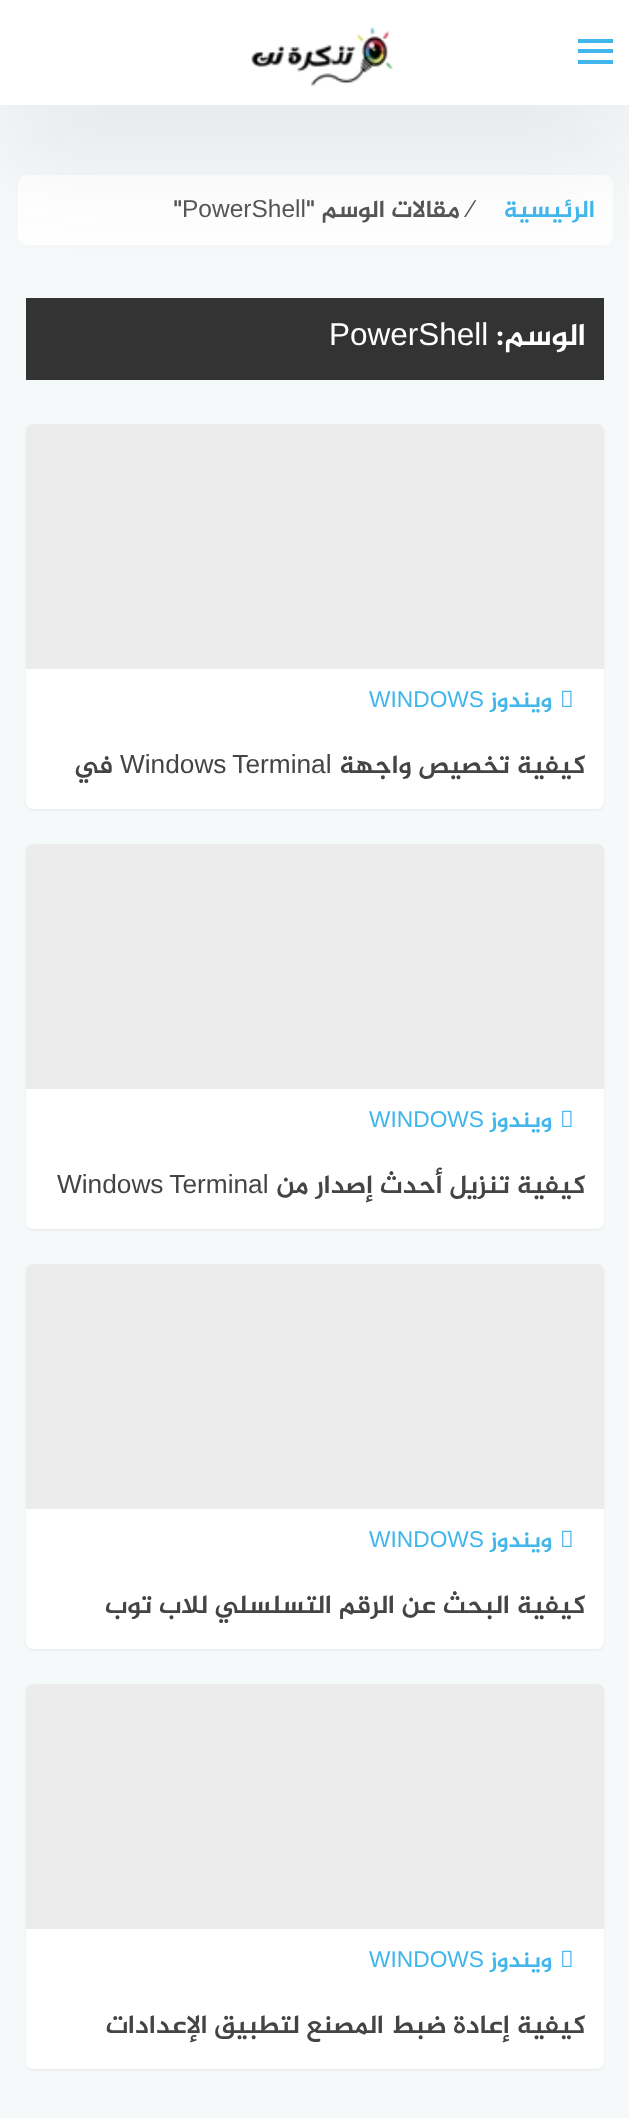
async function draw(canvas) {
  canvas.width = 629;
  canvas.height = 2118;
  const ctx = canvas.getContext('2d');
  ctx.miterLimit = 4;
  ctx.fontKerning = 'normal';
  function label(s, x, y, font, color) {
    ctx.font = font;
    ctx.fillStyle = color;
    ctx.fillText(s, x, y);
  }
  function rect(x, y, w, h, color) {
    ctx.fillStyle = color;
    ctx.fillRect(x, y, w, h);
  }
  function roundedRect(x, y, w, h, r, color) {
    ctx.fillStyle = color;
    ctx.beginPath();
    ctx.roundRect(x, y, w, h, r);
    ctx.fill();
  }
  async function image(src, x, y, w, h) {
    const img = new Image();
    img.src = src;
    await img.decode();
    ctx.drawImage(img, x, y, w, h);
  }

  rect(0, 0, 629, 2118, '#f6f9f9');
  roundedRect(18, 175, 595, 70, 9, '#fff');
  rect(26, 298, 578, 82, '#333');
  ctx.fillStyle = '#36394917';
  ctx.filter = 'blur(52.5px)';
  ctx.beginPath();
  ctx.rect(0, 51, 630, 105);
  ctx.fill();
  ctx.filter = 'none';
  rect(0, 0, 629, 105, '#fff');
  rect(578, 39, 35, 4, '#41b6ec');
  rect(578, 49, 35, 4, '#41b6ec');
  rect(578, 60, 35, 4, '#41b6ec');
  await image('assets/img1.png', 251, 27, 142, 60);
  ctx.direction = 'rtl';
  label('الرئيسية', 595, 217, 'bold 24.5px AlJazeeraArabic', '#41b6ec');
  ctx.direction = 'ltr';
  label('⁄', 469, 217, '24.5px Liberation Sans', '#555');
  ctx.direction = 'rtl';
  label('مقالات الوسم "', 460, 217, 'bold 24.5px AlJazeeraArabic', '#555');
  ctx.direction = 'ltr';
  label('PowerShell', 182, 217, '24.5px Liberation Sans', '#555');
  label('"', 173, 217, 'bold 24.5px AlJazeeraArabic', '#555');
  ctx.direction = 'rtl';
  label('الوسم:', 586, 345, 'bold 31.5px AlJazeeraArabic', '#fff');
  ctx.direction = 'ltr';
  label('PowerShell', 329, 345, '31.5px Liberation Sans', '#fff');
  ctx.fillStyle = '#00000012';
  ctx.filter = 'blur(1px)';
  ctx.beginPath();
  ctx.roundRect(26, 425, 578, 385, 7);
  ctx.fill();
  ctx.filter = 'none';
  roundedRect(26, 424, 578, 385, 7, '#fff');
  ctx.fillStyle = '#ececec';
  ctx.beginPath();
  ctx.roundRect(26, 424, 578, 245, [7, 7, 0, 0]);
  ctx.fill();
  await image('assets/img2.png', 562, 690, 10, 17);
  ctx.direction = 'rtl';
  label('ويندوز', 552, 707, 'bold 22.75px AlJazeeraArabic', '#41b6ec');
  ctx.direction = 'ltr';
  label('WINDOWS', 369, 707, '22.75px Liberation Sans', '#41b6ec');
  ctx.direction = 'rtl';
  label('كيفية تخصيص واجهة', 586, 773, 'bold 26.25px AlJazeeraArabic', '#444');
  ctx.wordSpacing = '-1px';
  ctx.direction = 'ltr';
  label('Windows Terminal', 120, 773, '26.25px Liberation Sans', '#444');
  ctx.wordSpacing = '0px';
  ctx.direction = 'rtl';
  label('في', 113, 773, 'bold 26.25px AlJazeeraArabic', '#444');
  ctx.fillStyle = '#00000012';
  ctx.filter = 'blur(1px)';
  ctx.beginPath();
  ctx.roundRect(26, 845, 578, 385, 7);
  ctx.fill();
  ctx.filter = 'none';
  roundedRect(26, 844, 578, 385, 7, '#fff');
  ctx.fillStyle = '#ececec';
  ctx.beginPath();
  ctx.roundRect(26, 844, 578, 245, [7, 7, 0, 0]);
  ctx.fill();
  await image('assets/img2.png', 562, 1110, 10, 17);
  label('ويندوز', 552, 1127, 'bold 22.75px AlJazeeraArabic', '#41b6ec');
  ctx.direction = 'ltr';
  label('WINDOWS', 369, 1127, '22.75px Liberation Sans', '#41b6ec');
  ctx.direction = 'rtl';
  label('كيفية تنزيل أحدث إصدار من', 586, 1193, 'bold 26.25px AlJazeeraArabic', '#444');
  ctx.wordSpacing = '-1px';
  ctx.direction = 'ltr';
  label('Windows Terminal', 57, 1193, '26.25px Liberation Sans', '#444');
  ctx.fillStyle = '#00000012';
  ctx.filter = 'blur(1px)';
  ctx.beginPath();
  ctx.roundRect(26, 1265, 578, 385, 7);
  ctx.fill();
  ctx.filter = 'none';
  roundedRect(26, 1264, 578, 385, 7, '#fff');
  ctx.fillStyle = '#ececec';
  ctx.beginPath();
  ctx.roundRect(26, 1264, 578, 245, [7, 7, 0, 0]);
  ctx.fill();
  await image('assets/img2.png', 562, 1530, 10, 17);
  ctx.wordSpacing = '0px';
  ctx.direction = 'rtl';
  label('ويندوز', 552, 1547, 'bold 22.75px AlJazeeraArabic', '#41b6ec');
  ctx.direction = 'ltr';
  label('WINDOWS', 369, 1547, '22.75px Liberation Sans', '#41b6ec');
  ctx.direction = 'rtl';
  label('كيفية البحث عن الرقم التسلسلي للاب توب', 586, 1613, 'bold 26.25px AlJazeeraArabic', '#444');
  ctx.fillStyle = '#00000012';
  ctx.filter = 'blur(1px)';
  ctx.beginPath();
  ctx.roundRect(26, 1685, 578, 385, 7);
  ctx.fill();
  ctx.filter = 'none';
  roundedRect(26, 1684, 578, 385, 7, '#fff');
  ctx.fillStyle = '#ececec';
  ctx.beginPath();
  ctx.roundRect(26, 1684, 578, 245, [7, 7, 0, 0]);
  ctx.fill();
  await image('assets/img2.png', 562, 1950, 10, 17);
  label('ويندوز', 552, 1967, 'bold 22.75px AlJazeeraArabic', '#41b6ec');
  ctx.direction = 'ltr';
  label('WINDOWS', 369, 1967, '22.75px Liberation Sans', '#41b6ec');
  ctx.direction = 'rtl';
  label('كيفية إعادة ضبط المصنع لتطبيق الإعدادات', 586, 2033, 'bold 26.25px AlJazeeraArabic', '#444');
}

draw(document.querySelector('canvas'));
